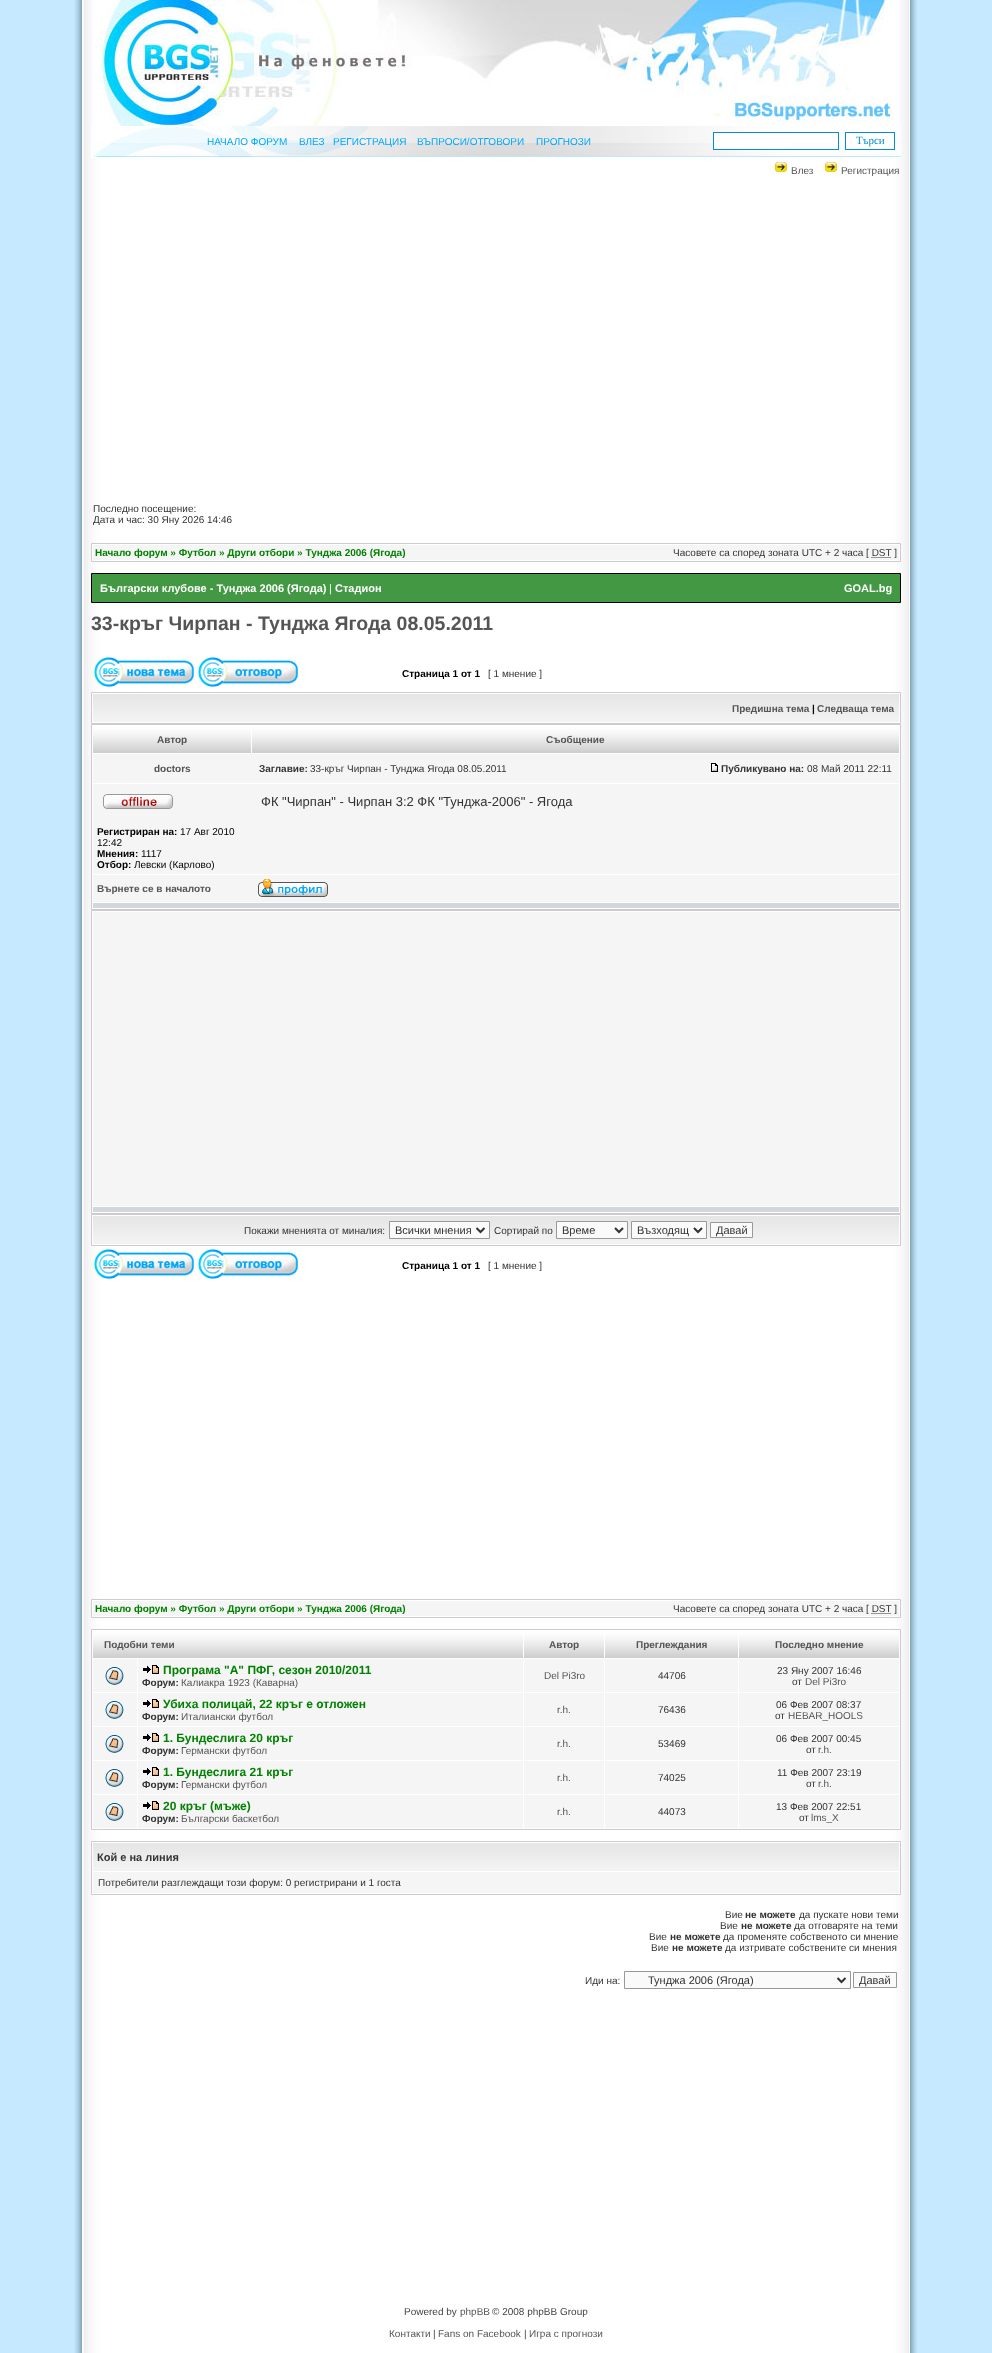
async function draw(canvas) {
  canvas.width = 992;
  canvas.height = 2353;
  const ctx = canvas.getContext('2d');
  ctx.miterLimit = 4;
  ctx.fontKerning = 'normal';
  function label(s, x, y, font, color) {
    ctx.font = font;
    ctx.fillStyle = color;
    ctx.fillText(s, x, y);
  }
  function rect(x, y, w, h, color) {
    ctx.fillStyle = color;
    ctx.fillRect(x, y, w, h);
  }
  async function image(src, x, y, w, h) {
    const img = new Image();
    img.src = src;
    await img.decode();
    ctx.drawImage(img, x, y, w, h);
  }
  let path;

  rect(0, 0, 992, 2353, '#c6e9ff');
  await image('assets/img1.png', 74, 0, 843, 2353);
  await image('assets/img2.png', 92, 0, 808, 126);
  await image('assets/img3.png', 91, 126, 810, 32);
  label('НАЧАЛО ФОРУМ', 207, 145, '10px Liberation Sans', '#00a7fc');
  label('ВЛЕЗ', 299, 145, '10px Liberation Sans', '#00a7fc');
  label('РЕГИСТРАЦИЯ', 333, 145, '10px Liberation Sans', '#00a7fc');
  label('ВЪПРОСИ/ОТГОВОРИ', 417, 145, '10px Liberation Sans', '#00a7fc');
  label('ПРОГНОЗИ', 536, 145, '10px Liberation Sans', '#00a7fc');
  rect(714, 133, 77, 16, '#fff');
  ctx.strokeStyle = '#048cd1';
  ctx.strokeRect(713.5, 132.5, 125, 17);
  rect(864, 143, 30, 1, '#fff');
  ctx.strokeRect(845.5, 132.5, 49, 17);
  label('Търси', 856, 144, '11px Liberation Serif', '#048cd1');
  await image('assets/img4.png', 775, 162, 12, 10);
  label('Влез', 791, 174, '10px Liberation Sans', '#555');
  await image('assets/img4.png', 825, 162, 12, 10);
  label('Регистрация', 841, 174, '10px Liberation Sans', '#555');
  label('Последно посещение:', 93, 512, '10px Liberation Sans', '#333');
  label('Дата и час: 30 Яну 2026 14:46', 93, 523, '10px Liberation Sans', '#333');
  ctx.fillStyle = '#fff';
  ctx.beginPath();
  ctx.rect(91.5, 543.5, 809, 18);
  ctx.fill();
  ctx.strokeStyle = '#ccc';
  ctx.stroke();
  rect(93, 545, 806, 15, '#f5f5f5');
  label('Начало форум » Футбол » Други отбори » Тунджа 2006 (Ягода)', 95, 556, 'bold 10px Liberation Sans', '#008200');
  label('Часовете са според зоната UTC + 2 часа [ DST ]', 673, 556, '10px Liberation Sans', '#333');
  path = new Path2D('M871.5 557.5H891.5');
  ctx.strokeStyle = '#333';
  ctx.setLineDash([1, 1]);
  ctx.stroke(path);
  ctx.fillStyle = '#439943';
  ctx.beginPath();
  ctx.rect(91.5, 573.5, 809, 29);
  ctx.fill();
  ctx.strokeStyle = '#000';
  ctx.setLineDash([]);
  ctx.stroke();
  label('Български клубове - Тунджа 2006 (Ягода)', 100, 592, 'bold 11px Liberation Sans', '#fff');
  label('|', 329, 592, '11px Liberation Sans', '#fff');
  label('Стадион', 335, 592, 'bold 11px Liberation Sans', '#fff');
  label('GOAL.bg', 844, 592, 'bold 11px Liberation Sans', '#fff');
  label('33-кръг Чирпан - Тунджа Ягода 08.05.2011', 91, 630, 'bold 19.5px Liberation Sans', '#555');
  await image('assets/img5.png', 94, 657, 100, 30);
  await image('assets/img6.png', 198, 657, 100, 30);
  label('Страница 1 от 1', 402, 677, 'bold 10px Liberation Sans', '#000');
  label('[ 1 мнение ]', 488, 677, '10px Liberation Sans', '#333');
  ctx.fillStyle = '#fff';
  ctx.beginPath();
  ctx.rect(91.5, 692.5, 809, 31);
  ctx.fill();
  ctx.strokeStyle = '#ccc';
  ctx.stroke();
  await image('assets/img7.png', 93, 694, 806, 28);
  label('Предишна тема', 732, 712, 'bold 10px Liberation Sans', '#555');
  label('|', 812, 712, 'bold 10px Liberation Sans', '#000');
  label('Следваща тема', 817, 712, 'bold 10px Liberation Sans', '#555');
  ctx.fillStyle = '#fff';
  ctx.beginPath();
  ctx.rect(91.5, 724.5, 809, 185);
  ctx.fill();
  ctx.stroke();
  await image('assets/img8.png', 93, 726, 158, 27);
  label('Автор', 157, 743, 'bold 10px Liberation Sans', '#555');
  await image('assets/img9.png', 252, 726, 647, 27);
  label('Съобщение', 546, 743, 'bold 10px Liberation Sans', '#555');
  rect(93, 754, 806, 29, '#f5f5f5');
  label('doctors', 154, 772, 'bold 10px Liberation Sans', '#555');
  label('Заглавие:', 259, 772, 'bold 10px Liberation Sans', '#333');
  label('33-кръг Чирпан - Тунджа Ягода 08.05.2011', 310, 772, '10px Liberation Sans', '#333');
  await image('assets/img10.png', 711, 763, 7, 9);
  label('Публикувано на:', 721, 772, 'bold 10px Liberation Sans', '#333');
  label('08 Май 2011 22:11', 807, 772, '10px Liberation Sans', '#333');
  rect(93, 784, 806, 90, '#f5f5f5');
  label('ФК "Чирпан" - Чирпан 3:2 ФК "Тунджа-2006" - Ягода', 261, 806, '13px Liberation Sans', '#333');
  await image('assets/img11.png', 103, 794, 70, 15);
  label('Регистриран на:', 97, 835, 'bold 10px Liberation Sans', '#000');
  label('17 Авг 2010', 180, 835, '10px Liberation Sans', '#000');
  label('12:42', 97, 846, '10px Liberation Sans', '#000');
  label('Мнения:', 97, 857, 'bold 10px Liberation Sans', '#000');
  label('1117', 141, 857, '10px Liberation Sans', '#000');
  label('Отбор:', 97, 868, 'bold 10px Liberation Sans', '#000');
  label('Левски (Карлово)', 134, 868, '10px Liberation Sans', '#000');
  rect(93, 875, 806, 27, '#f5f5f5');
  label('Върнете се в началото', 97, 892, 'bold 10px Liberation Sans', '#555');
  await image('assets/img12.png', 258, 879, 70, 18);
  rect(93, 903, 806, 5, '#d1d7dc');
  ctx.fillStyle = '#fff';
  ctx.beginPath();
  ctx.rect(91.5, 910.5, 809, 303);
  ctx.fill();
  ctx.stroke();
  rect(93, 912, 806, 294, '#f5f5f5');
  rect(93, 1207, 806, 5, '#d1d7dc');
  ctx.fillStyle = '#fff';
  ctx.beginPath();
  ctx.rect(91.5, 1214.5, 809, 31);
  ctx.fill();
  ctx.stroke();
  await image('assets/img7.png', 93, 1216, 806, 28);
  label('Покажи мненията от миналия:', 244, 1234, '10px Liberation Sans', '#333');
  ctx.fillStyle = '#fafafa';
  ctx.beginPath();
  ctx.rect(389.5, 1221.5, 100, 17);
  ctx.fill();
  ctx.strokeStyle = '#999';
  ctx.stroke();
  path = new Path2D('M476.5 1228L480.5 1232L484.5 1228');
  ctx.strokeStyle = '#333';
  ctx.lineWidth = 2;
  ctx.stroke(path);
  label('Всички мнения', 395, 1234, '11px Liberation Sans', '#333');
  label('Сортирай по', 494, 1234, '10px Liberation Sans', '#333');
  ctx.fillStyle = '#fafafa';
  ctx.beginPath();
  ctx.rect(556.5, 1221.5, 71, 17);
  ctx.fill();
  ctx.strokeStyle = '#999';
  ctx.lineWidth = 1;
  ctx.stroke();
  path = new Path2D('M615 1228L619 1232L623 1228');
  ctx.strokeStyle = '#333';
  ctx.lineWidth = 2;
  ctx.stroke(path);
  label('Време', 562, 1234, '11px Liberation Sans', '#333');
  ctx.fillStyle = '#fafafa';
  ctx.beginPath();
  ctx.rect(631.5, 1221.5, 75, 17);
  ctx.fill();
  ctx.strokeStyle = '#999';
  ctx.lineWidth = 1;
  ctx.stroke();
  path = new Path2D('M694 1228L698 1232L702 1228');
  ctx.strokeStyle = '#333';
  ctx.lineWidth = 2;
  ctx.stroke(path);
  label('Възходящ', 637, 1234, '11px Liberation Sans', '#333');
  ctx.fillStyle = '#fafafa';
  ctx.beginPath();
  ctx.rect(710.5, 1222.5, 42, 15);
  ctx.fill();
  ctx.strokeStyle = '#999';
  ctx.lineWidth = 1;
  ctx.stroke();
  label('Давай', 716, 1234, '11px Liberation Sans', '#333');
  await image('assets/img5.png', 94, 1249, 100, 30);
  await image('assets/img6.png', 198, 1249, 100, 30);
  label('Страница 1 от 1', 402, 1269, 'bold 10px Liberation Sans', '#000');
  label('[ 1 мнение ]', 488, 1269, '10px Liberation Sans', '#333');
  ctx.fillStyle = '#fff';
  ctx.beginPath();
  ctx.rect(91.5, 1599.5, 809, 18);
  ctx.fill();
  ctx.strokeStyle = '#ccc';
  ctx.stroke();
  rect(93, 1601, 806, 15, '#f5f5f5');
  label('Начало форум » Футбол » Други отбори » Тунджа 2006 (Ягода)', 95, 1612, 'bold 10px Liberation Sans', '#008200');
  label('Часовете са според зоната UTC + 2 часа [ DST ]', 673, 1612, '10px Liberation Sans', '#333');
  path = new Path2D('M871.5 1613.5H891.5');
  ctx.strokeStyle = '#333';
  ctx.setLineDash([1, 1]);
  ctx.stroke(path);
  ctx.fillStyle = '#fff';
  ctx.beginPath();
  ctx.rect(91.5, 1629.5, 809, 200);
  ctx.fill();
  ctx.strokeStyle = '#ccc';
  ctx.setLineDash([]);
  ctx.stroke();
  await image('assets/img13.png', 93, 1631, 430, 27);
  label('Подобни теми', 104, 1648, 'bold 10px Liberation Sans', '#555');
  await image('assets/img14.png', 524, 1631, 80, 27);
  label('Автор', 549, 1648, 'bold 10px Liberation Sans', '#555');
  await image('assets/img15.png', 605, 1631, 133, 27);
  label('Преглеждания', 636, 1648, 'bold 10px Liberation Sans', '#555');
  await image('assets/img16.png', 739, 1631, 160, 27);
  label('Последно мнение', 775, 1648, 'bold 10px Liberation Sans', '#555');
  rect(93, 1659, 44, 33, '#f5f5f5');
  await image('assets/img17.png', 105, 1667, 19, 18);
  rect(138, 1659, 385, 33, '#f5f5f5');
  await image('assets/img18.png', 143, 1665, 16, 9);
  label('Програма "А" ПФГ, сезон 2010/2011', 163, 1674, 'bold 12px Liberation Sans', '#008200');
  label('Форум:', 142, 1686, 'bold 10px Liberation Sans', '#333');
  label('Калиакра 1923 (Каварна)', 181, 1686, '10px Liberation Sans', '#555');
  rect(524, 1659, 80, 33, '#f5f5f5');
  label('Del Pi3ro', 544, 1679, '10px Liberation Sans', '#555');
  rect(605, 1659, 133, 33, '#f5f5f5');
  label('44706', 658, 1679, '10px Liberation Sans', '#333');
  rect(739, 1659, 160, 33, '#f5f5f5');
  label('23 Яну 2007 16:46', 777, 1674, '10px Liberation Sans', '#333');
  label('от', 792, 1685, '10px Liberation Sans', '#333');
  label('Del Pi3ro', 805, 1685, '10px Liberation Sans', '#555');
  rect(93, 1693, 44, 33, '#f5f5f5');
  await image('assets/img17.png', 105, 1701, 19, 18);
  rect(138, 1693, 385, 33, '#f5f5f5');
  await image('assets/img18.png', 143, 1699, 16, 9);
  label('Убиха полицай, 22 кръг е отложен', 163, 1708, 'bold 12px Liberation Sans', '#008200');
  label('Форум:', 142, 1720, 'bold 10px Liberation Sans', '#333');
  label('Италиански футбол', 181, 1720, '10px Liberation Sans', '#555');
  rect(524, 1693, 80, 33, '#f5f5f5');
  label('r.h.', 557, 1713, '10px Liberation Sans', '#555');
  rect(605, 1693, 133, 33, '#f5f5f5');
  label('76436', 658, 1713, '10px Liberation Sans', '#333');
  rect(739, 1693, 160, 33, '#f5f5f5');
  label('06 Фев 2007 08:37', 776, 1708, '10px Liberation Sans', '#333');
  label('от', 775, 1719, '10px Liberation Sans', '#333');
  label('HEBAR_HOOLS', 788, 1719, '10px Liberation Sans', '#555');
  rect(93, 1727, 44, 33, '#f5f5f5');
  await image('assets/img17.png', 105, 1735, 19, 18);
  rect(138, 1727, 385, 33, '#f5f5f5');
  await image('assets/img18.png', 143, 1733, 16, 9);
  label('1. Бундеслига 20 кръг', 163, 1742, 'bold 12px Liberation Sans', '#008200');
  label('Форум:', 142, 1754, 'bold 10px Liberation Sans', '#333');
  label('Германски футбол', 181, 1754, '10px Liberation Sans', '#555');
  rect(524, 1727, 80, 33, '#f5f5f5');
  label('r.h.', 557, 1747, '10px Liberation Sans', '#555');
  rect(605, 1727, 133, 33, '#f5f5f5');
  label('53469', 658, 1747, '10px Liberation Sans', '#333');
  rect(739, 1727, 160, 33, '#f5f5f5');
  label('06 Фев 2007 00:45', 776, 1742, '10px Liberation Sans', '#333');
  label('от', 806, 1753, '10px Liberation Sans', '#333');
  label('r.h.', 818, 1753, '10px Liberation Sans', '#555');
  rect(93, 1761, 44, 33, '#f5f5f5');
  await image('assets/img17.png', 105, 1769, 19, 18);
  rect(138, 1761, 385, 33, '#f5f5f5');
  await image('assets/img18.png', 143, 1767, 16, 9);
  label('1. Бундеслига 21 кръг', 163, 1776, 'bold 12px Liberation Sans', '#008200');
  label('Форум:', 142, 1788, 'bold 10px Liberation Sans', '#333');
  label('Германски футбол', 181, 1788, '10px Liberation Sans', '#555');
  rect(524, 1761, 80, 33, '#f5f5f5');
  label('r.h.', 557, 1781, '10px Liberation Sans', '#555');
  rect(605, 1761, 133, 33, '#f5f5f5');
  label('74025', 658, 1781, '10px Liberation Sans', '#333');
  rect(739, 1761, 160, 33, '#f5f5f5');
  label('11 Фев 2007 23:19', 777, 1776, '10px Liberation Sans', '#333');
  label('от', 806, 1787, '10px Liberation Sans', '#333');
  label('r.h.', 818, 1787, '10px Liberation Sans', '#555');
  rect(93, 1795, 44, 33, '#f5f5f5');
  await image('assets/img17.png', 105, 1803, 19, 18);
  rect(138, 1795, 385, 33, '#f5f5f5');
  await image('assets/img18.png', 143, 1801, 16, 9);
  label('20 кръг (мъже)', 163, 1810, 'bold 12px Liberation Sans', '#008200');
  label('Форум:', 142, 1822, 'bold 10px Liberation Sans', '#333');
  label('Български баскетбол', 181, 1822, '10px Liberation Sans', '#555');
  rect(524, 1795, 80, 33, '#f5f5f5');
  label('r.h.', 557, 1815, '10px Liberation Sans', '#555');
  rect(605, 1795, 133, 33, '#f5f5f5');
  label('44073', 658, 1815, '10px Liberation Sans', '#333');
  rect(739, 1795, 160, 33, '#f5f5f5');
  label('13 Фев 2007 22:51', 776, 1810, '10px Liberation Sans', '#333');
  label('от', 799, 1821, '10px Liberation Sans', '#333');
  label('lms_X', 811, 1821, '10px Liberation Sans', '#555');
  ctx.fillStyle = '#fff';
  ctx.beginPath();
  ctx.rect(91.5, 1841.5, 809, 53);
  ctx.fill();
  ctx.stroke();
  await image('assets/img7.png', 93, 1843, 806, 28);
  label('Кой е на линия', 97, 1861, 'bold 11px Liberation Sans', '#333');
  rect(93, 1872, 806, 21, '#f5f5f5');
  label('Потребители разглеждащи този форум: 0 регистрирани и 1 госта', 98, 1886, '10px Liberation Sans', '#333');
  label('Вие', 725, 1918, '10px Liberation Sans', '#333');
  label('не можете', 745, 1918, 'bold 10px Liberation Sans', '#333');
  label('да пускате нови теми', 799, 1918, '10px Liberation Sans', '#333');
  label('Вие', 720, 1929, '10px Liberation Sans', '#333');
  label('не можете', 741, 1929, 'bold 10px Liberation Sans', '#333');
  label('да отговаряте на теми', 794, 1929, '10px Liberation Sans', '#333');
  label('Вие', 649, 1940, '10px Liberation Sans', '#333');
  label('не можете', 670, 1940, 'bold 10px Liberation Sans', '#333');
  label('да променяте собственото си мнение', 723, 1940, '10px Liberation Sans', '#333');
  label('Вие', 651, 1951, '10px Liberation Sans', '#333');
  label('не можете', 672, 1951, 'bold 10px Liberation Sans', '#333');
  label('да изтривате собствените си мнения', 725, 1951, '10px Liberation Sans', '#333');
  label('Иди на:', 585, 1984, '10px Liberation Sans', '#333');
  ctx.fillStyle = '#fafafa';
  ctx.beginPath();
  ctx.rect(624.5, 1971.5, 226, 17);
  ctx.fill();
  ctx.strokeStyle = '#999';
  ctx.stroke();
  path = new Path2D('M837.5 1978L841.5 1982L845.5 1978');
  ctx.strokeStyle = '#333';
  ctx.lineWidth = 2;
  ctx.stroke(path);
  label('Тунджа 2006 (Ягода)', 648, 1984, '11px Liberation Sans', '#333');
  ctx.fillStyle = '#fafafa';
  ctx.beginPath();
  ctx.rect(853.5, 1972.5, 43, 15);
  ctx.fill();
  ctx.strokeStyle = '#999';
  ctx.lineWidth = 1;
  ctx.stroke();
  label('Давай', 859, 1984, '11px Liberation Sans', '#333');
  label('Powered by', 404, 2315, '10px Liberation Sans', '#444');
  label('phpBB', 460, 2315, '10px Liberation Sans', '#555');
  label('© 2008 phpBB Group', 492, 2315, '10px Liberation Sans', '#444');
  label('Контакти', 389, 2337, '10px Liberation Sans', '#555');
  label('|', 433, 2337, '10px Liberation Sans', '#444');
  label('Fans on Facebook', 438, 2337, '10px Liberation Sans', '#555');
  label('|', 524, 2337, '10px Liberation Sans', '#444');
  label('Игра с прогнози', 529, 2337, '10px Liberation Sans', '#555');
}

draw(document.querySelector('canvas'));
